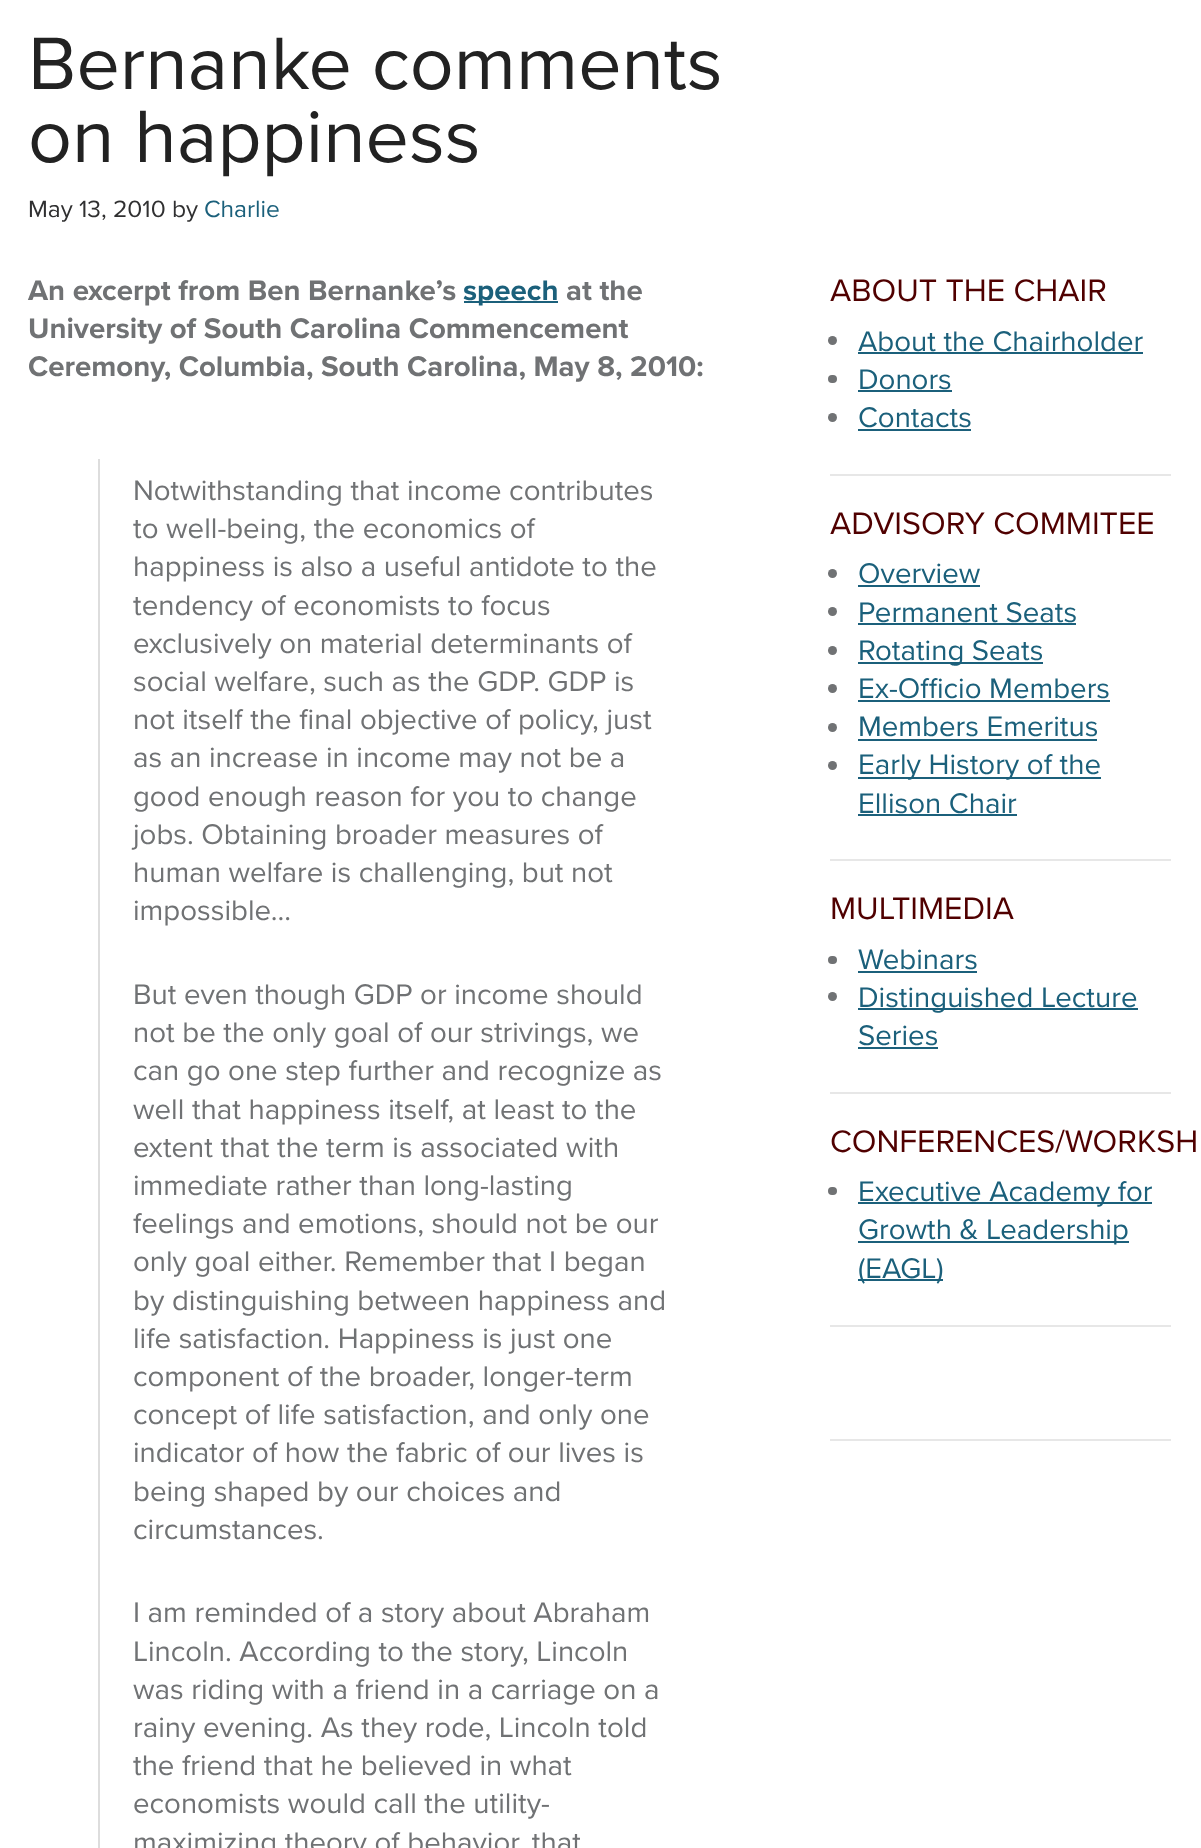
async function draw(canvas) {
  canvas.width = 1201;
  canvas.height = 1848;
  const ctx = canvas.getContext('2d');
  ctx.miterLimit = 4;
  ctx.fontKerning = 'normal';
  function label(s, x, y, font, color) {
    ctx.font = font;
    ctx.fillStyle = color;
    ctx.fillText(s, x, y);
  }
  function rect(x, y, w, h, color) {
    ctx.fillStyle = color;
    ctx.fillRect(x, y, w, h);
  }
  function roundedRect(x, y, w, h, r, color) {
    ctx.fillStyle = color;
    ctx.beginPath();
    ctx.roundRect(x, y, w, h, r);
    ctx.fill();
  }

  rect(0, 0, 1201, 1848, '#fff');
  label('Bernanke comments', 28, 89, '77px Proxima Nova', '#222');
  label('on happiness', 28, 162, '77px Proxima Nova', '#222');
  label('May 13, 2010 by', 28, 217, '24.5px Proxima Nova', '#303031');
  label('Charlie', 204, 217, '24.5px Proxima Nova', '#1b607b');
  label('An excerpt from Ben Bernanke’s', 28, 300, 'bold 29.4px Proxima Nova', '#707274');
  rect(464, 301, 94, 2, '#1b607b');
  label('speech', 463, 300, 'bold 29.4px Proxima Nova', '#1b607b');
  label('at the', 566, 300, 'bold 29.4px Proxima Nova', '#707274');
  label('University of South Carolina Commencement', 28, 338, 'bold 29.4px Proxima Nova', '#707274');
  label('Ceremony, Columbia, South Carolina, May 8, 2010:', 28, 376, 'bold 29.4px Proxima Nova', '#707274');
  rect(98, 459, 2, 1389, '#ddd');
  label('Notwithstanding that income contributes', 133, 500, '29.4px Proxima Nova', '#707274');
  label('to well-being, the economics of', 133, 538, '29.4px Proxima Nova', '#707274');
  label('happiness is also a useful antidote to the', 133, 576, '29.4px Proxima Nova', '#707274');
  label('tendency of economists to focus', 133, 615, '29.4px Proxima Nova', '#707274');
  label('exclusively on material determinants of', 133, 653, '29.4px Proxima Nova', '#707274');
  label('social welfare, such as the GDP. GDP is', 133, 691, '29.4px Proxima Nova', '#707274');
  label('not itself the final objective of policy, just', 133, 729, '29.4px Proxima Nova', '#707274');
  label('as an increase in income may not be a', 133, 767, '29.4px Proxima Nova', '#707274');
  label('good enough reason for you to change', 133, 806, '29.4px Proxima Nova', '#707274');
  label('jobs. Obtaining broader measures of', 133, 844, '29.4px Proxima Nova', '#707274');
  label('human welfare is challenging, but not', 133, 882, '29.4px Proxima Nova', '#707274');
  label('impossible…', 133, 920, '29.4px Proxima Nova', '#707274');
  label('But even though GDP or income should', 133, 1004, '29.4px Proxima Nova', '#707274');
  label('not be the only goal of our strivings, we', 133, 1042, '29.4px Proxima Nova', '#707274');
  label('can go one step further and recognize as', 133, 1080, '29.4px Proxima Nova', '#707274');
  label('well that happiness itself, at least to the', 133, 1119, '29.4px Proxima Nova', '#707274');
  label('extent that the term is associated with', 133, 1157, '29.4px Proxima Nova', '#707274');
  label('immediate rather than long-lasting', 133, 1195, '29.4px Proxima Nova', '#707274');
  label('feelings and emotions, should not be our', 133, 1233, '29.4px Proxima Nova', '#707274');
  label('only goal either. Remember that I began', 133, 1271, '29.4px Proxima Nova', '#707274');
  label('by distinguishing between happiness and', 133, 1310, '29.4px Proxima Nova', '#707274');
  label('life satisfaction. Happiness is just one', 133, 1348, '29.4px Proxima Nova', '#707274');
  label('component of the broader, longer-term', 133, 1386, '29.4px Proxima Nova', '#707274');
  label('concept of life satisfaction, and only one', 133, 1424, '29.4px Proxima Nova', '#707274');
  label('indicator of how the fabric of our lives is', 133, 1462, '29.4px Proxima Nova', '#707274');
  label('being shaped by our choices and', 133, 1501, '29.4px Proxima Nova', '#707274');
  label('circumstances.', 133, 1539, '29.4px Proxima Nova', '#707274');
  label('I am reminded of a story about Abraham', 133, 1622, '29.4px Proxima Nova', '#707274');
  label('Lincoln. According to the story, Lincoln', 133, 1661, '29.4px Proxima Nova', '#707274');
  label('was riding with a friend in a carriage on a', 133, 1699, '29.4px Proxima Nova', '#707274');
  label('rainy evening. As they rode, Lincoln told', 133, 1737, '29.4px Proxima Nova', '#707274');
  label('the friend that he believed in what', 133, 1775, '29.4px Proxima Nova', '#707274');
  label('economists would call the utility-', 133, 1813, '29.4px Proxima Nova', '#707274');
  label('maximizing theory of behavior, that', 133, 1852, '29.4px Proxima Nova', '#707274');
  rect(830, 474, 341, 2, '#e7e7e7');
  label('ABOUT THE CHAIR', 830, 301, '32.25px Proxima Nova', '#500000');
  ctx.fillStyle = '#707274';
  ctx.beginPath();
  ctx.arc(832.5, 340.5, 4.5, 0, 2 * Math.PI);
  ctx.fill();
  label('About the Chairholder', 858, 351, '29.4px Proxima Nova', '#1b607b');
  rect(858, 352, 285, 2, '#1b607b');
  roundedRect(828, 375, 9, 8, 4, '#707274');
  label('Donors', 858, 389, '29.4px Proxima Nova', '#1b607b');
  rect(858, 390, 94, 2, '#1b607b');
  ctx.fillStyle = '#707274';
  ctx.beginPath();
  ctx.arc(832.5, 417.5, 4.5, 0, 2 * Math.PI);
  ctx.fill();
  label('Contacts', 858, 427, '29.4px Proxima Nova', '#1b607b');
  rect(858, 429, 113, 2, '#1b607b');
  rect(830, 859, 341, 2, '#e7e7e7');
  label('ADVISORY COMMITEE', 830, 534, '32.25px Proxima Nova', '#500000');
  ctx.fillStyle = '#707274';
  ctx.beginPath();
  ctx.arc(832.5, 573.5, 4.5, 0, 2 * Math.PI);
  ctx.fill();
  label('Overview', 858, 583, '29.4px Proxima Nova', '#1b607b');
  rect(858, 585, 122, 2, '#1b607b');
  ctx.fillStyle = '#707274';
  ctx.beginPath();
  ctx.arc(832.5, 611.5, 4.5, 0, 2 * Math.PI);
  ctx.fill();
  label('Permanent Seats', 858, 622, '29.4px Proxima Nova', '#1b607b');
  rect(858, 623, 218, 2, '#1b607b');
  ctx.fillStyle = '#707274';
  ctx.beginPath();
  ctx.arc(832.5, 650.5, 4.5, 0, 2 * Math.PI);
  ctx.fill();
  rect(858, 662, 185, 2, '#1b607b');
  label('Rotating Seats', 858, 660, '29.4px Proxima Nova', '#1b607b');
  ctx.fillStyle = '#707274';
  ctx.beginPath();
  ctx.arc(832.5, 688.5, 4.5, 0, 2 * Math.PI);
  ctx.fill();
  label('Ex-Officio Members', 858, 698, '29.4px Proxima Nova', '#1b607b');
  rect(858, 700, 252, 2, '#1b607b');
  ctx.fillStyle = '#707274';
  ctx.beginPath();
  ctx.arc(832.5, 727.5, 4.5, 0, 2 * Math.PI);
  ctx.fill();
  label('Members Emeritus', 858, 736, '29.4px Proxima Nova', '#1b607b');
  rect(858, 739, 239, 2, '#1b607b');
  ctx.fillStyle = '#707274';
  ctx.beginPath();
  ctx.arc(832.5, 765.5, 4.5, 0, 2 * Math.PI);
  ctx.fill();
  rect(858, 777, 243, 2, '#1b607b');
  label('Early History of the', 858, 774, '29.4px Proxima Nova', '#1b607b');
  label('Ellison Chair', 858, 813, '29.4px Proxima Nova', '#1b607b');
  rect(858, 814, 159, 2, '#1b607b');
  rect(830, 1092, 341, 2, '#e7e7e7');
  label('MULTIMEDIA', 830, 919, '32.25px Proxima Nova', '#500000');
  roundedRect(828, 956, 9, 8, 4, '#707274');
  label('Webinars', 858, 969, '29.4px Proxima Nova', '#1b607b');
  rect(858, 971, 119, 2, '#1b607b');
  ctx.fillStyle = '#707274';
  ctx.beginPath();
  ctx.arc(832.5, 996.5, 4.5, 0, 2 * Math.PI);
  ctx.fill();
  rect(858, 1008, 280, 2, '#1b607b');
  label('Distinguished Lecture', 858, 1007, '29.4px Proxima Nova', '#1b607b');
  label('Series', 858, 1045, '29.4px Proxima Nova', '#1b607b');
  rect(858, 1047, 80, 2, '#1b607b');
  rect(830, 1325, 341, 2, '#e7e7e7');
  label('CONFERENCES/WORKSH', 830, 1152, '32.25px Proxima Nova', '#500000');
  roundedRect(828, 1187, 9, 8, 4, '#707274');
  rect(858, 1202, 294, 2, '#1b607b');
  label('Executive Academy for', 858, 1201, '29.4px Proxima Nova', '#1b607b');
  rect(858, 1241, 271, 2, '#1b607b');
  label('Growth & Leadership', 858, 1239, '29.4px Proxima Nova', '#1b607b');
  rect(858, 1279, 85, 2, '#1b607b');
  label('(EAGL)', 858, 1278, '29.4px Proxima Nova', '#1b607b');
  rect(830, 1439, 341, 2, '#e7e7e7');
}

draw(document.querySelector('canvas'));
